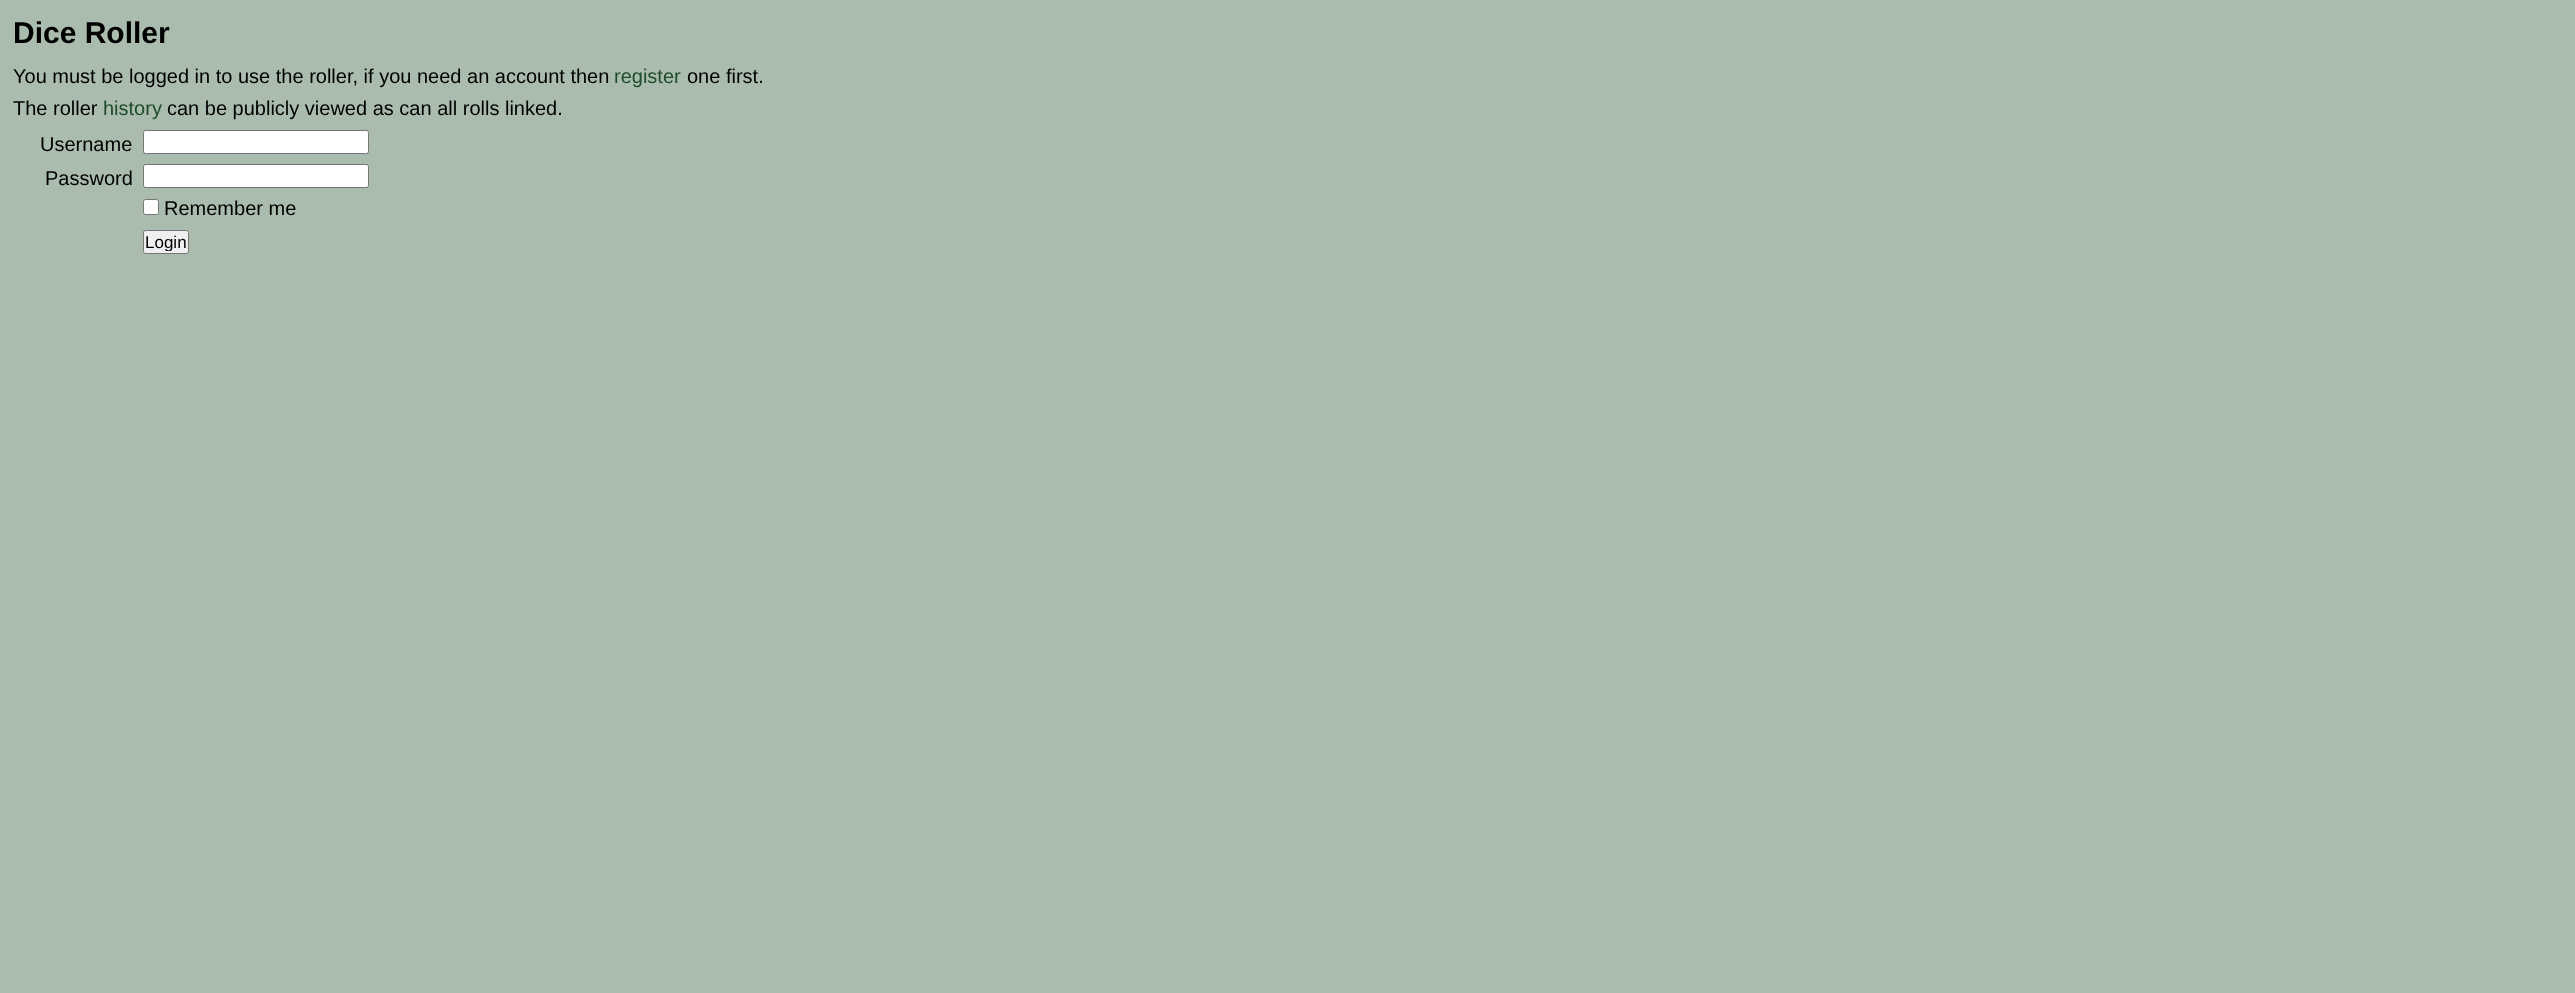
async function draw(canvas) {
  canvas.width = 2575;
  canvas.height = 993;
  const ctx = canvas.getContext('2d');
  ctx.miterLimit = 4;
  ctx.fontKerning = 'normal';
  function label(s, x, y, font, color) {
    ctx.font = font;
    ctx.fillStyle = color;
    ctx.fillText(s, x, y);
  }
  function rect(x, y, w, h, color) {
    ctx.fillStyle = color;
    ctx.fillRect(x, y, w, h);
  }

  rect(0, 0, 2575, 993, '#aabcae');
  label('Dice Roller', 13, 43, 'bold 30px Liberation Sans', '#000');
  label('You must be logged in to use the roller, if you need an account then', 13, 83, '20px Liberation Sans', '#000');
  label('register', 614, 83, '20px Liberation Sans', '#1f4c2a');
  label('one first.', 687, 83, '20px Liberation Sans', '#000');
  label('The roller', 13, 115, '20px Liberation Sans', '#000');
  label('history', 103, 115, '20px Liberation Sans', '#1f4c2a');
  label('can be publicly viewed as can all rolls linked.', 167, 115, '20px Liberation Sans', '#000');
  label('Username', 40, 151, '20px Liberation Sans', '#000');
  ctx.fillStyle = '#fff';
  ctx.beginPath();
  ctx.roundRect(143.5, 130.5, 225, 23, 2);
  ctx.fill();
  ctx.strokeStyle = '#767676';
  ctx.stroke();
  label('Password', 45, 185, '20px Liberation Sans', '#000');
  ctx.fillStyle = '#fff';
  ctx.beginPath();
  ctx.roundRect(143.5, 164.5, 225, 23, 2);
  ctx.fill();
  ctx.stroke();
  ctx.beginPath();
  ctx.roundRect(143.5, 199.5, 15, 15, 2);
  ctx.fill();
  ctx.stroke();
  label('Remember me', 164, 215, '20px Liberation Sans', '#000');
  ctx.fillStyle = '#efefef';
  ctx.beginPath();
  ctx.roundRect(143.5, 230.5, 45, 23, 2);
  ctx.fill();
  ctx.stroke();
  ctx.save();
  ctx.beginPath();
  ctx.rect(145, 233, 41, 18);
  ctx.clip();
  label('Login', 145, 248, '17px Liberation Sans', '#000');
  ctx.restore();
}

draw(document.querySelector('canvas'));
